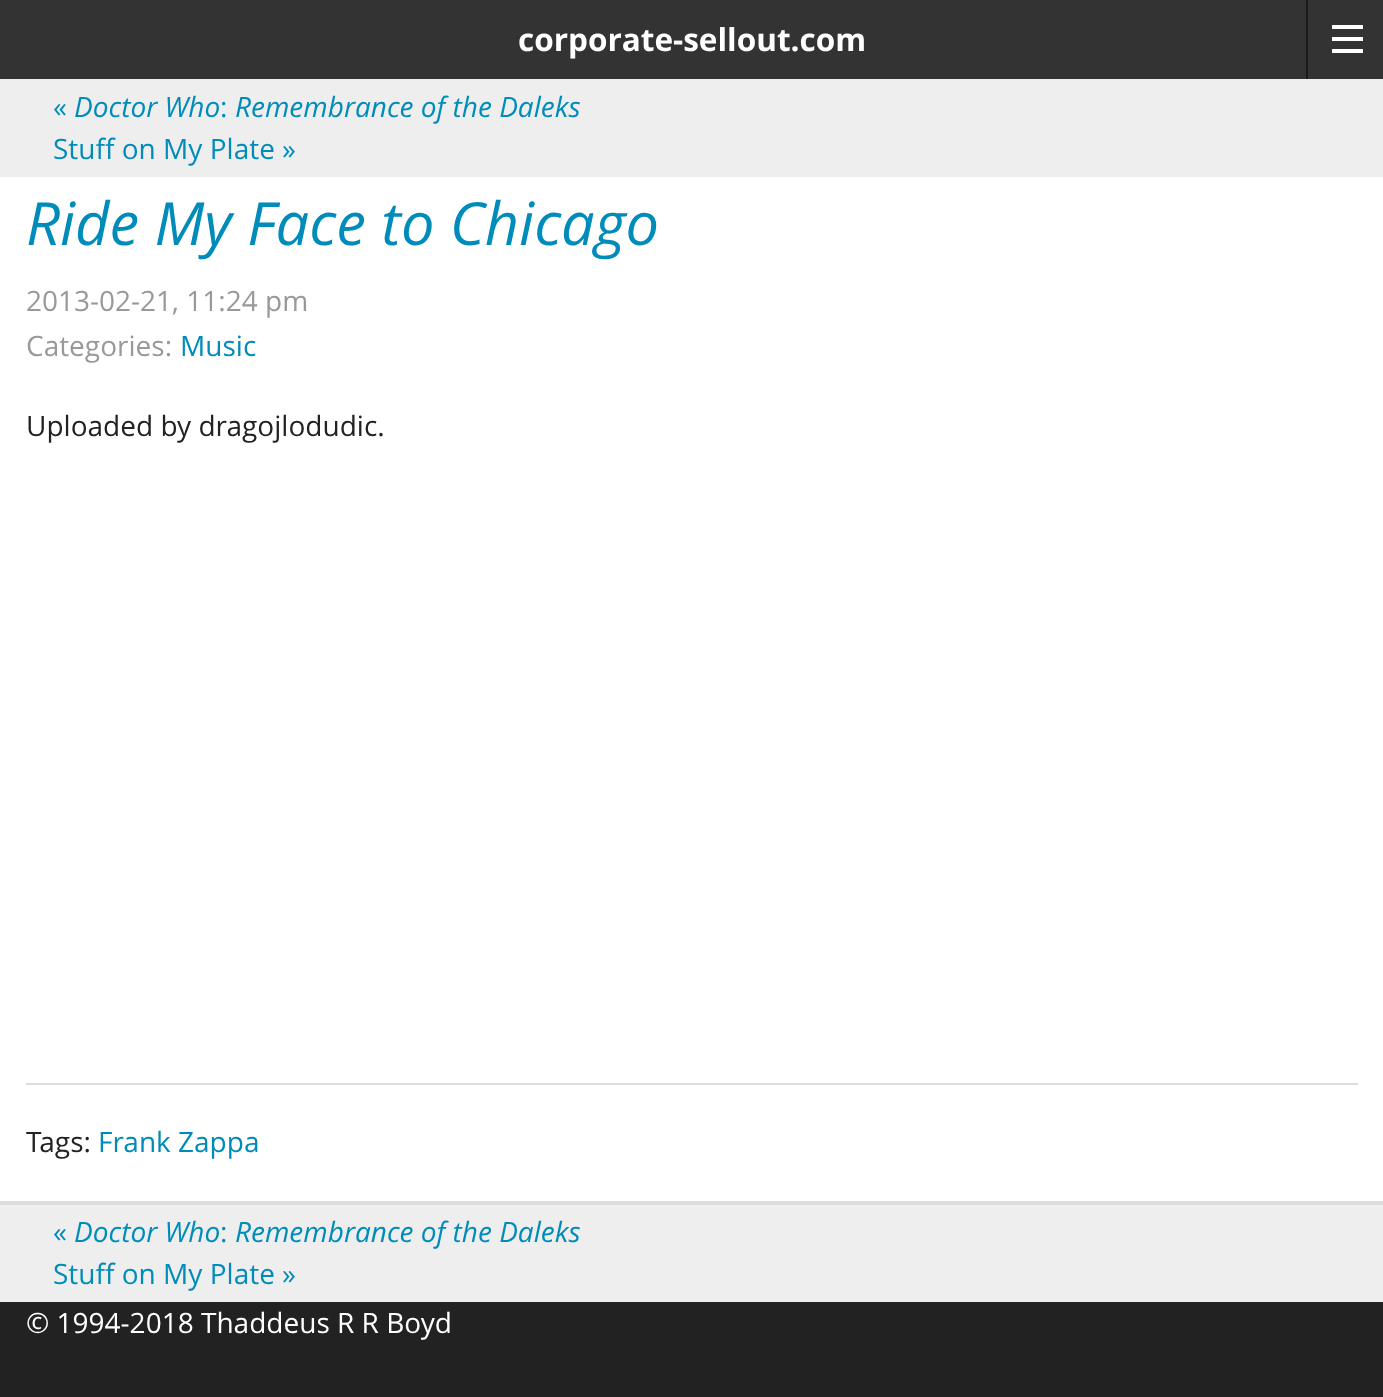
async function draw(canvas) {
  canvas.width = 1383;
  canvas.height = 1397;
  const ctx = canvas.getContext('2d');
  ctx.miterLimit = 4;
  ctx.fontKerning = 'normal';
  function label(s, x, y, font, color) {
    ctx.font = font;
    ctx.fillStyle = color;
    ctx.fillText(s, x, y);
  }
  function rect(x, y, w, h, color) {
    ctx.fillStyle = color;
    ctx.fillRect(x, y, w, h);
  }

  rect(0, 0, 1383, 1397, '#222');
  rect(0, 0, 1383, 79, '#333');
  label('corporate-sellout.com', 518, 51, 'bold 31.5px Open Sans', '#fff');
  rect(1306, 0, 2, 79, '#1a1a1a');
  rect(1332, 49, 31, 4, '#fff');
  rect(1332, 37, 31, 4, '#fff');
  rect(1332, 25, 31, 4, '#fff');
  rect(0, 79, 1383, 1223, '#eee');
  label('«', 53, 117, '28px Open Sans', '#008cba');
  label('Doctor Who', 74, 117, 'italic 28px Open Sans', '#008cba');
  label(':', 220, 117, '28px Open Sans', '#008cba');
  label('Remembrance of the Daleks', 235, 117, 'italic 28px Open Sans', '#008cba');
  label('Stuff on My Plate »', 53, 159, '28px Open Sans', '#008cba');
  rect(0, 177, 1383, 1024, '#fff');
  rect(0, 1201, 1383, 4, '#ddd');
  label('Ride My Face to Chicago', 26, 245, 'italic 59.5px Open Sans', '#008cba');
  label('2013-02-21, 11:24 pm', 26, 311, '28px Open Sans', '#999');
  label('Categories:', 26, 356, '28px Open Sans', '#999');
  label('Music', 180, 356, '28px Open Sans', '#008cba');
  label('Uploaded by dragojlodudic.', 26, 436, '28px Open Sans', '#222');
  rect(26, 1083, 1332, 2, '#ddd');
  label('Tags:', 26, 1152, '28px Open Sans', '#222');
  label('Frank Zappa', 98, 1152, '28px Open Sans', '#008cba');
  label('«', 53, 1242, '28px Open Sans', '#008cba');
  label('Doctor Who', 74, 1242, 'italic 28px Open Sans', '#008cba');
  label(':', 220, 1242, '28px Open Sans', '#008cba');
  label('Remembrance of the Daleks', 235, 1242, 'italic 28px Open Sans', '#008cba');
  label('Stuff on My Plate »', 53, 1284, '28px Open Sans', '#008cba');
  label('© 1994-2018 Thaddeus R R Boyd', 26, 1333, '28px Open Sans', '#fff');
}

draw(document.querySelector('canvas'));
